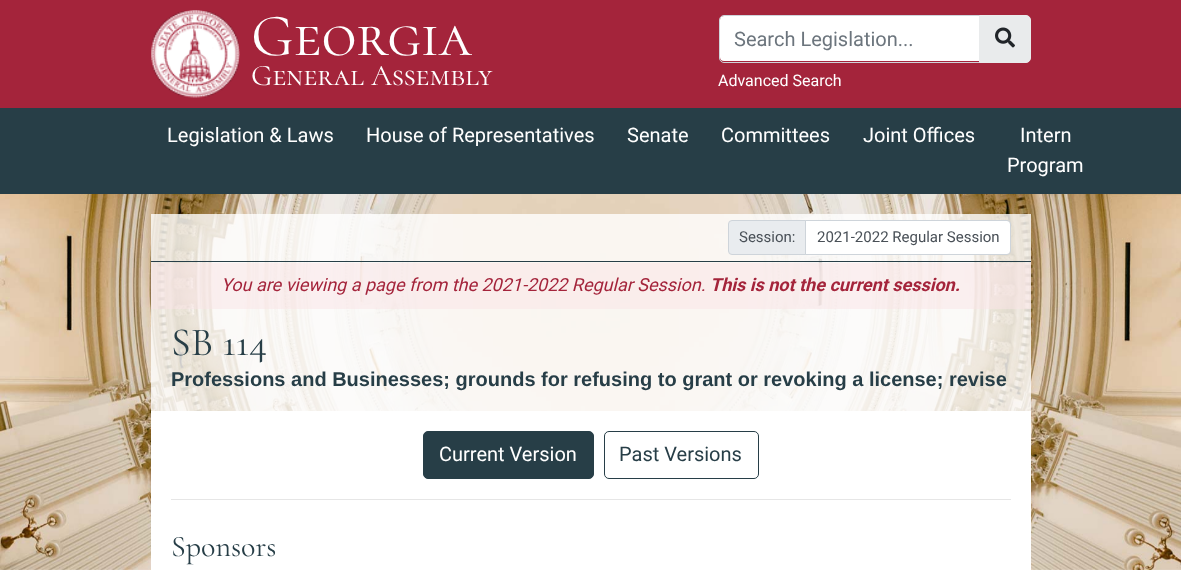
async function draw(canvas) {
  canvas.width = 1181;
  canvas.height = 570;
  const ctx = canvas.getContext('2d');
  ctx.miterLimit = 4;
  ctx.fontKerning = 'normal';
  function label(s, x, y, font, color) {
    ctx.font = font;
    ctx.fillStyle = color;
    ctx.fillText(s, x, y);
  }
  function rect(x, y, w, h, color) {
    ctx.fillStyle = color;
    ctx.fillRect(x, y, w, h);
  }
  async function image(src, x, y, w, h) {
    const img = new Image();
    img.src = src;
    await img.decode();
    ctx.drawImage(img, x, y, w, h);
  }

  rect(0, 0, 1181, 570, '#fff');
  await image('assets/img1.png', 0, 194, 1181, 376);
  rect(0, 0, 1181, 108, '#a4243b');
  await image('assets/img2.png', 151, 10, 89, 88);
  label('Georgia', 251, 55, '60px Cormorant SC', '#fff');
  label('General Assembly', 251, 85, '30px Cormorant SC', '#fff');
  ctx.beginPath();
  ctx.roundRect(720, 16, 259, 45, [4, 0, 0, 4]);
  ctx.fill();
  ctx.beginPath();
  ctx.roundRect(719.5, 15.5, 260, 47, [4.5, 0, 0, 4.5]);
  ctx.strokeStyle = '#ced4da';
  ctx.stroke();
  label('Search Legislation...', 734, 46, '20px Roboto', '#6c757d');
  ctx.fillStyle = '#e9ebec';
  ctx.beginPath();
  ctx.roundRect(979.5, 15.5, 51, 47, [0, 4.5, 4.5, 0]);
  ctx.fill();
  ctx.strokeStyle = '#e9ebec';
  ctx.stroke();
  await image('assets/img3.png', 995, 27, 20, 21);
  label('Advanced Search', 718, 86, '16px Roboto', '#fff');
  rect(0, 108, 1181, 86, '#273e47');
  label('Legislation & Laws', 167, 142, '20px Roboto', '#fff');
  label('House of Representatives', 366, 142, '20px Roboto', '#fff');
  label('Senate', 627, 142, '20px Roboto', '#fff');
  label('Committees', 721, 142, '20px Roboto', '#fff');
  label('Joint Offices', 863, 142, '20px Roboto', '#fff');
  label('Intern', 1020, 142, '20px Roboto', '#fff');
  label('Program', 1007, 172, '20px Roboto', '#fff');
  rect(151, 214, 880, 49, '#ffffffcc');
  rect(151, 261, 880, 1, '#273e47');
  ctx.fillStyle = '#e9ecef';
  ctx.beginPath();
  ctx.roundRect(728.5, 220.5, 77, 34, [3.5, 0, 0, 3.5]);
  ctx.fill();
  ctx.strokeStyle = '#ced4da';
  ctx.stroke();
  label('Session:', 739, 242, '15px Roboto', '#495057');
  ctx.fillStyle = '#fff';
  ctx.beginPath();
  ctx.roundRect(806, 221, 204, 33, [0, 2.5, 2.5, 0]);
  ctx.fill();
  ctx.beginPath();
  ctx.roundRect(805.5, 220.5, 205, 34, [0, 3.5, 3.5, 0]);
  ctx.stroke();
  label('2021-2022 Regular Session', 817, 242, '15px Roboto', '#495057');
  rect(151, 263, 880, 46, '#fceff1e6');
  label('You are viewing a page from the 2021-2022 Regular Session.', 221, 291, 'italic 18px Roboto', '#a4243b');
  label('This is not the current session.', 710, 291, 'italic bold 18px Roboto', '#a4243b');
  rect(151, 309, 880, 102, '#ffffffcc');
  label('SB 114', 171, 355, '300 40px Cormorant', '#273e47');
  label('Professions and Businesses; grounds for refusing to grant or revoking a license; revise', 171, 386, 'bold 20px Liberation Sans', '#273e47');
  rect(151, 411, 880, 159, '#fff');
  ctx.fillStyle = '#273e47';
  ctx.beginPath();
  ctx.roundRect(423.5, 431.5, 170, 47, 4.5);
  ctx.fill();
  ctx.strokeStyle = '#273e47';
  ctx.stroke();
  label('Current Version', 439, 461, '20px Roboto', '#fff');
  ctx.beginPath();
  ctx.roundRect(604.5, 431.5, 154, 47, 4.5);
  ctx.stroke();
  label('Past Versions', 619, 461, '20px Roboto', '#273e47');
  rect(171, 499, 840, 1, '#e6e6e6');
  label('Sponsors', 171, 556, '300 30px Cormorant', '#273e47');
}

draw(document.querySelector('canvas'));
